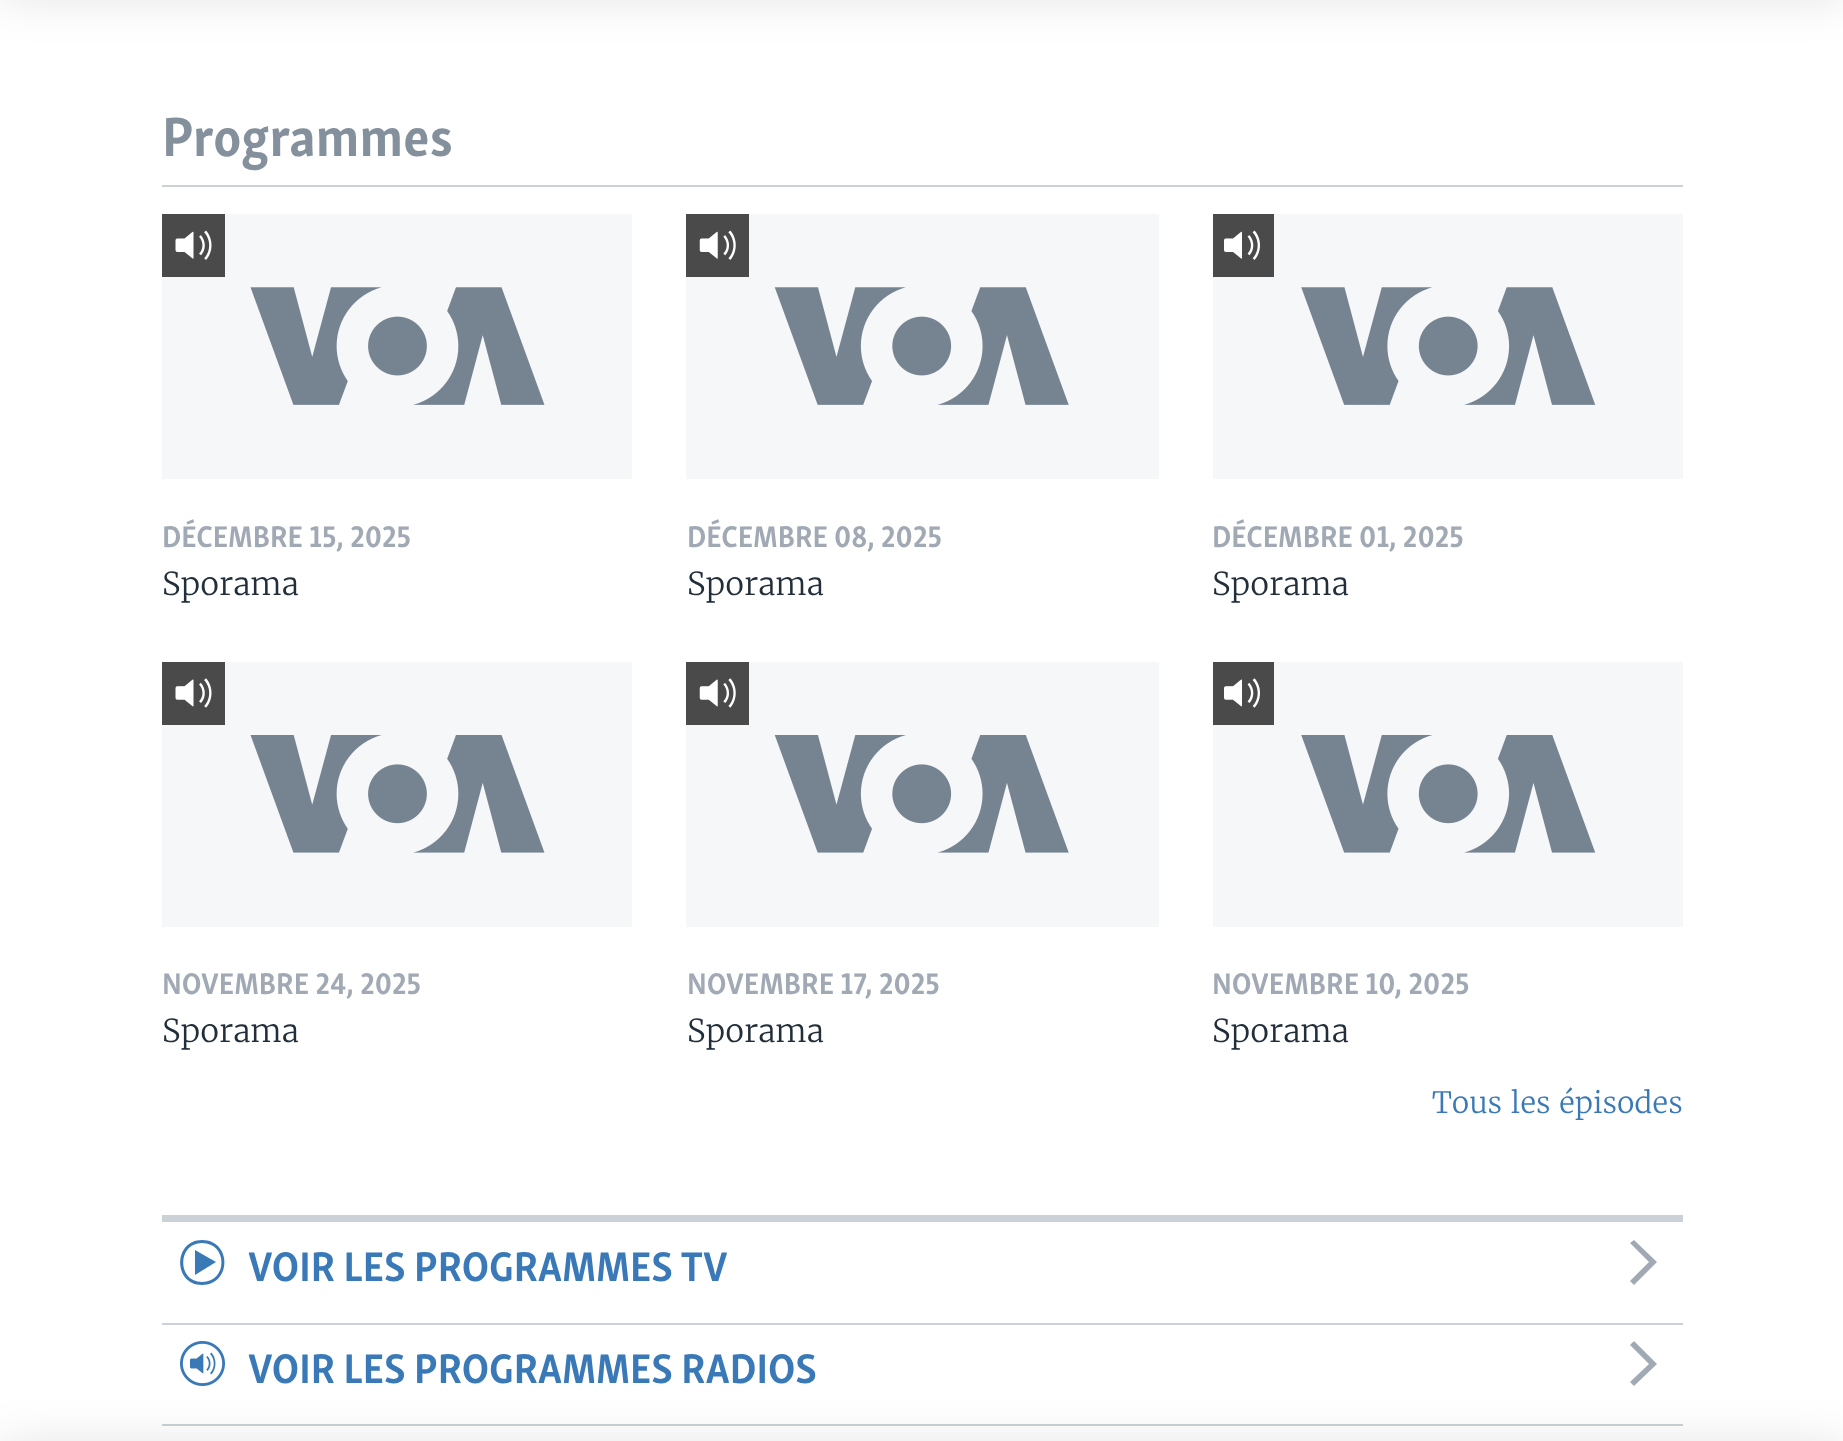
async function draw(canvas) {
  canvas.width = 1843;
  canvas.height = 1441;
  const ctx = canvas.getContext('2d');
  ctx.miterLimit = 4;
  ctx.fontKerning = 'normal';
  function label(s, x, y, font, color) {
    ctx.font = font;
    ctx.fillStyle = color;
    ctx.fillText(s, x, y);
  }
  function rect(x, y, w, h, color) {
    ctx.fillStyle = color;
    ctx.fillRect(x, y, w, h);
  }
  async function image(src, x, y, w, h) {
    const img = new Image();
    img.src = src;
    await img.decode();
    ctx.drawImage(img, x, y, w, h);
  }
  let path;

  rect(0, 0, 1843, 1441, '#fff');
  ctx.fillStyle = '#0000001a';
  ctx.filter = 'blur(22.5px)';
  ctx.beginPath();
  ctx.rect(0, -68, 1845, 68);
  ctx.fill();
  ctx.filter = 'none';
  rect(162, 1424, 1521, 2, '#cbd1d6');
  await image('assets/img13.png', 180, 1341, 45, 45);
  ctx.fillStyle = '#a1aab4';
  path = new Path2D('M1634 1386L1657 1364L1634 1341L1630 1345L1649 1364L1630 1382Z');
  ctx.fill(path);
  ctx.fillStyle = '#0000001a';
  ctx.filter = 'blur(22.5px)';
  ctx.beginPath();
  ctx.rect(0, 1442, 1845, 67);
  ctx.fill();
  ctx.filter = 'none';
  rect(162, 185, 1521, 2, '#cbd1d6');
  label('Programmes', 162, 156, 'bold 56.75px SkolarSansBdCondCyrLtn', '#84919d');
  rect(162, 214, 470, 265, '#f6f7f8');
  await image('assets/img1.png', 250, 287, 295, 118);
  rect(162, 214, 63, 63, '#4a4a4a');
  await image('assets/img2.png', 175, 230, 37, 30);
  label('DÉCEMBRE 15, 2025', 162, 547, 'bold 30.75px SkolarSansBdCondCyrLtn', '#a1aab4');
  label('Sporama', 162, 595, '300 31.5px Merriweather', '#222f3a');
  rect(686, 214, 473, 265, '#f6f7f8');
  await image('assets/img3.png', 774, 287, 295, 118);
  rect(686, 214, 63, 63, '#4a4a4a');
  await image('assets/img4.png', 699, 230, 37, 30);
  label('DÉCEMBRE 08, 2025', 687, 547, 'bold 30.75px SkolarSansBdCondCyrLtn', '#a1aab4');
  label('Sporama', 687, 595, '300 31.5px Merriweather', '#222f3a');
  rect(1213, 214, 470, 265, '#f6f7f8');
  await image('assets/img5.png', 1301, 287, 295, 118);
  rect(1213, 214, 61, 63, '#4a4a4a');
  await image('assets/img6.png', 1224, 230, 36, 30);
  label('DÉCEMBRE 01, 2025', 1212, 547, 'bold 30.75px SkolarSansBdCondCyrLtn', '#a1aab4');
  label('Sporama', 1212, 595, '300 31.5px Merriweather', '#222f3a');
  rect(162, 662, 470, 265, '#f6f7f8');
  await image('assets/img7.png', 250, 735, 295, 118);
  rect(162, 662, 63, 63, '#4a4a4a');
  await image('assets/img8.png', 175, 678, 37, 30);
  label('NOVEMBRE 24, 2025', 162, 994, 'bold 30.75px SkolarSansBdCondCyrLtn', '#a1aab4');
  label('Sporama', 162, 1042, '300 31.5px Merriweather', '#222f3a');
  rect(686, 662, 473, 265, '#f6f7f8');
  await image('assets/img9.png', 774, 735, 295, 118);
  rect(686, 662, 63, 63, '#4a4a4a');
  await image('assets/img10.png', 699, 678, 37, 30);
  label('NOVEMBRE 17, 2025', 687, 994, 'bold 30.75px SkolarSansBdCondCyrLtn', '#a1aab4');
  label('Sporama', 687, 1042, '300 31.5px Merriweather', '#222f3a');
  rect(1213, 662, 470, 265, '#f6f7f8');
  await image('assets/img11.png', 1301, 735, 295, 118);
  rect(1213, 662, 61, 63, '#4a4a4a');
  await image('assets/img12.png', 1224, 678, 36, 30);
  label('NOVEMBRE 10, 2025', 1212, 994, 'bold 30.75px SkolarSansBdCondCyrLtn', '#a1aab4');
  label('Sporama', 1212, 1042, '300 31.5px Merriweather', '#222f3a');
  label('Tous les épisodes', 1432, 1113, '300 29.25px Merriweather', '#3a79b7');
  rect(162, 1215, 1521, 7, '#cbd1d6');
  rect(162, 1323, 1521, 2, '#cbd1d6');
  ctx.fillStyle = '#3a79b7';
  path = new Path2D('M195 1275L216 1262L195 1250ZM202 1243C228 1243 228 1282 202 1282C177 1282 177 1243 202 1243ZM202 1240C173 1240 173 1285 202 1285C232 1285 232 1240 202 1240Z');
  ctx.fill(path);
  label('VOIR LES PROGRAMMES TV', 248, 1281, 'bold 42.5px SkolarSansBdCondCyrLtn', '#3a79b7');
  ctx.fillStyle = '#a1aab4';
  path = new Path2D('M1634 1285L1657 1262L1634 1240L1630 1243L1649 1262L1630 1281Z');
  ctx.fill(path);
  label('VOIR LES PROGRAMMES RADIOS', 248, 1383, 'bold 42.5px SkolarSansBdCondCyrLtn', '#3a79b7');
}

draw(document.querySelector('canvas'));
